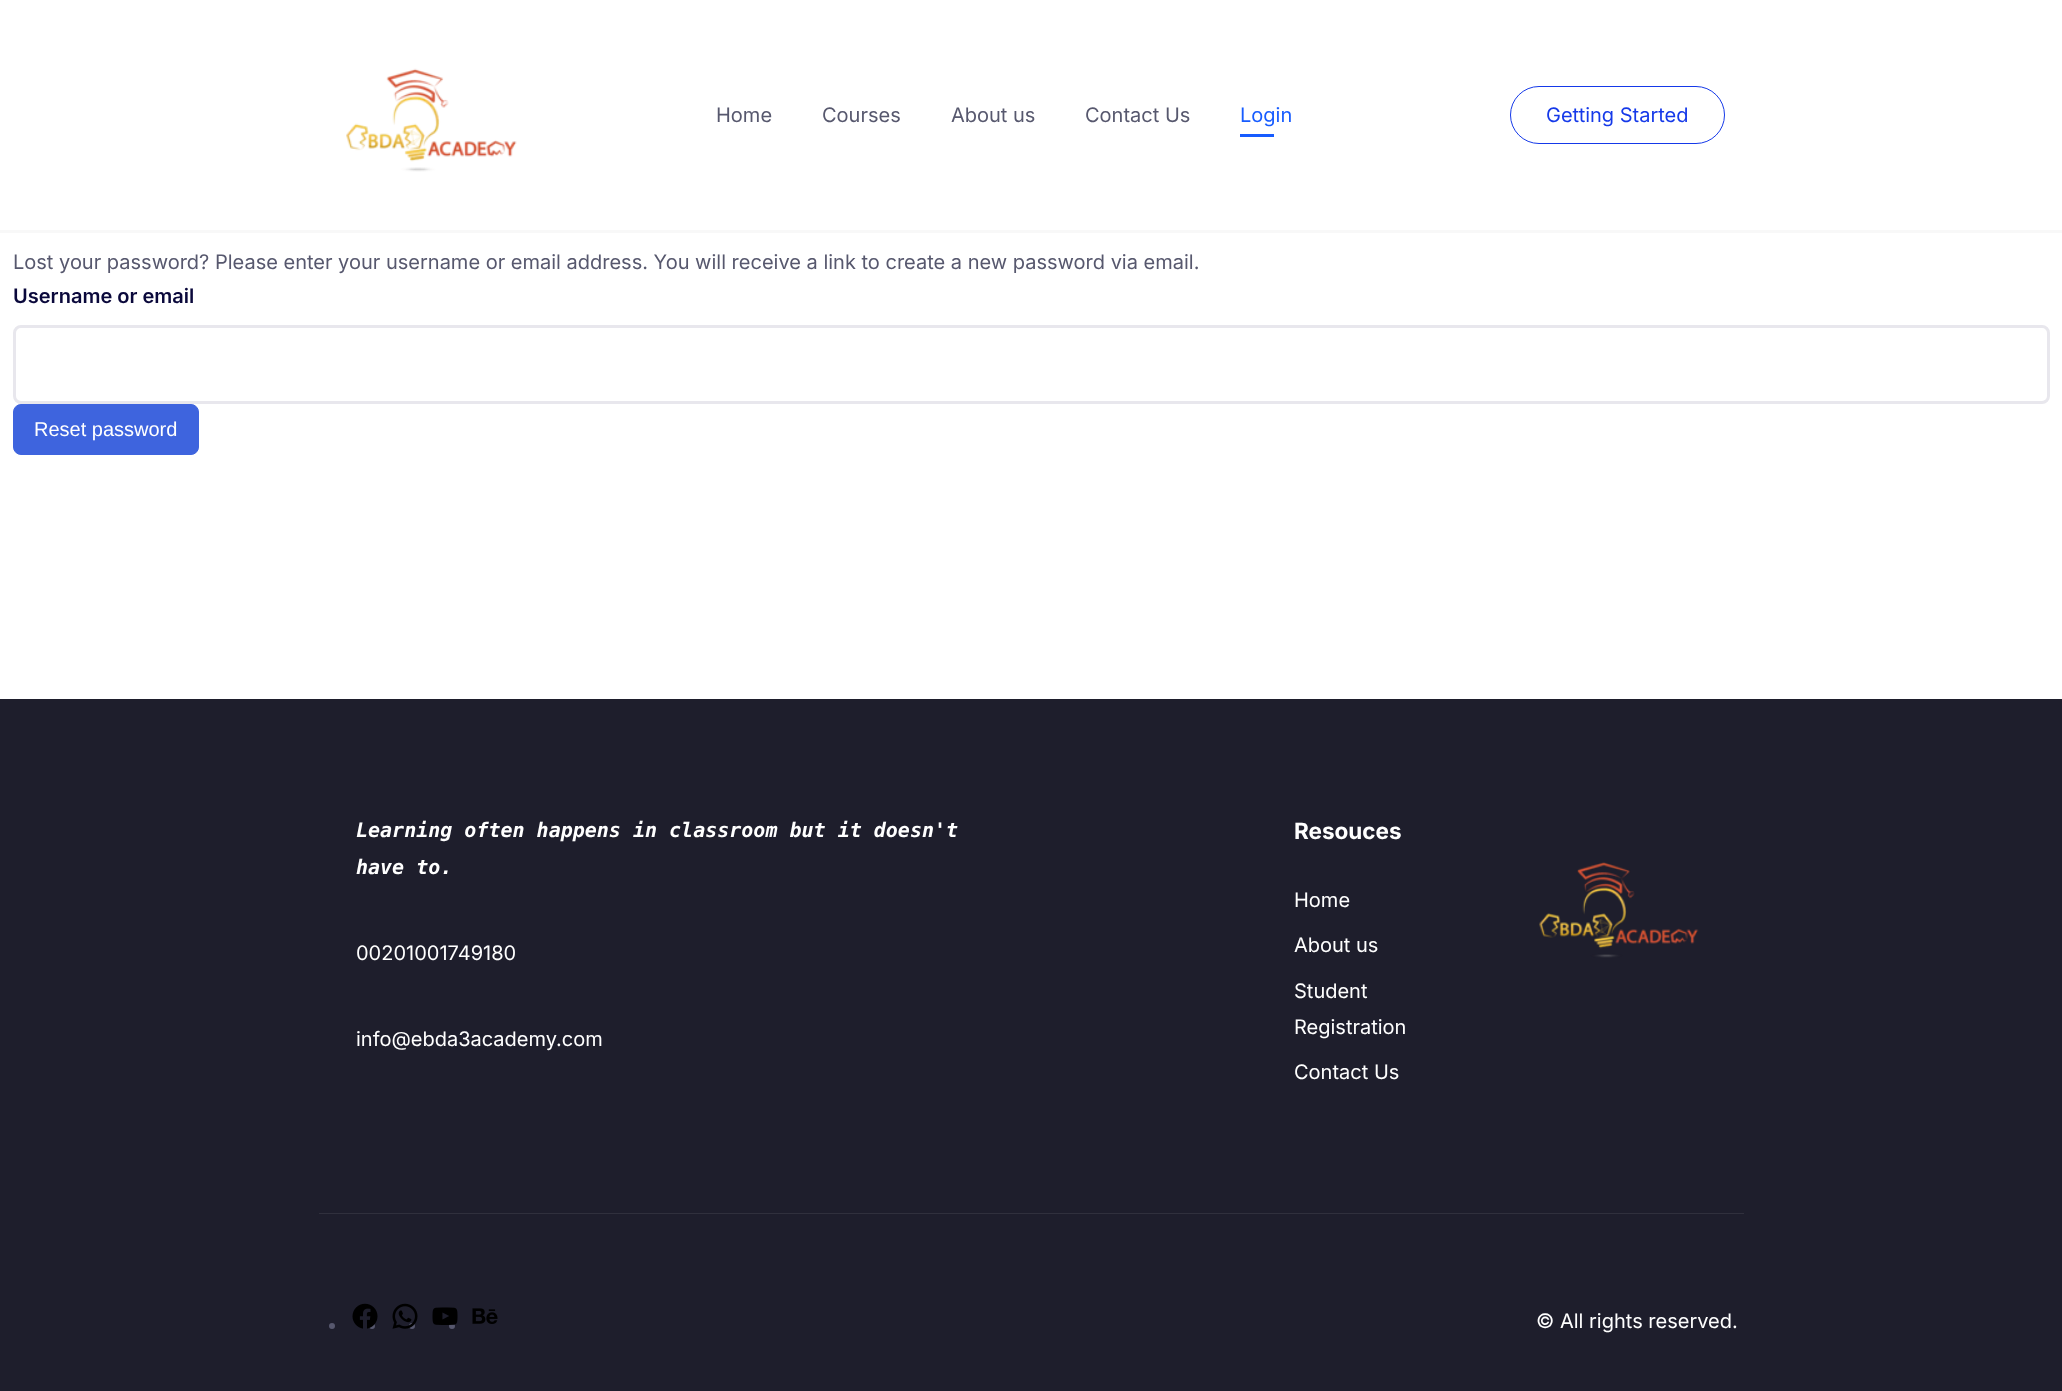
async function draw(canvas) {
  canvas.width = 2062;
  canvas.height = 1391;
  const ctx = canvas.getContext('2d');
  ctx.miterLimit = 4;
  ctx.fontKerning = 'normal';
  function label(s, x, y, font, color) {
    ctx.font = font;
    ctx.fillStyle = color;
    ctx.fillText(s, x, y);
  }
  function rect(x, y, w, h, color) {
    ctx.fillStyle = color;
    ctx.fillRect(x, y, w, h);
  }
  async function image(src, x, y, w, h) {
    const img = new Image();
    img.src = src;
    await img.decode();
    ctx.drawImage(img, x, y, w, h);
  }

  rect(0, 0, 2062, 1391, '#fff');
  rect(0, 230, 2062, 3, '#f8f8f8');
  await image('assets/img1.png', 346, 68, 171, 104);
  label('Home', 716, 122, '20px Inter', '#57586e');
  label('Courses', 822, 122, '20px Inter', '#57586e');
  label('About us', 951, 122, '20px Inter', '#57586e');
  label('Contact Us', 1085, 122, '20px Inter', '#57586e');
  label('Login', 1240, 122, '20px Inter', '#175cff');
  rect(1240, 134, 34, 3, '#175cff');
  ctx.beginPath();
  ctx.roundRect(1510.5, 86.5, 214, 57, 28.5);
  ctx.strokeStyle = '#1539e9';
  ctx.stroke();
  label('Getting Started', 1546, 122, '20px Inter', '#1539e9');
  label('Lost your password? Please enter your username or email address. You will receive a link to create a new password via email.', 13, 269, '20px Inter', '#57586e');
  label('Username or email', 13, 303, '600 20px Inter', '#0a083b');
  ctx.beginPath();
  ctx.roundRect(14.5, 326.5, 2034, 76, 6.5);
  ctx.strokeStyle = '#e8e7ed';
  ctx.lineWidth = 3;
  ctx.stroke();
  ctx.fillStyle = '#3e64de';
  ctx.beginPath();
  ctx.roundRect(13.5, 404.5, 185, 50, 7.5);
  ctx.fill();
  ctx.strokeStyle = '#3e64de';
  ctx.lineWidth = 1;
  ctx.stroke();
  label('Reset password', 34, 436, '20px Liberation Sans', '#fff');
  rect(0, 699, 2062, 692, '#1e1e2c');
  rect(319, 1213, 1425, 1, '#30303d');
  label('Learning often happens in classroom but it doesn\'t', 356, 837, 'italic bold 20px DejaVu Sans Mono', '#fff');
  label('have to.', 356, 874, 'italic bold 20px DejaVu Sans Mono', '#fff');
  label('00201001749180', 356, 960, '20px Inter', '#fff');
  label('info@ebda3academy.com', 356, 1046, '20px Inter', '#fff');
  label('Resouces', 1294, 839, 'bold 22.5px Inter', '#fff');
  label('Home', 1294, 907, '20px Inter', '#fff');
  label('About us', 1294, 952, '20px Inter', '#fff');
  label('Student', 1294, 998, '20px Inter', '#fff');
  label('Registration', 1294, 1034, '20px Inter', '#fff');
  label('Contact Us', 1294, 1079, '20px Inter', '#fff');
  await image('assets/img2.png', 1539, 862, 160, 96);
  ctx.fillStyle = '#57586e';
  ctx.beginPath();
  ctx.arc(332, 1326, 3, 0, 2 * Math.PI);
  ctx.fill();
  ctx.beginPath();
  ctx.arc(372, 1326, 3, 0, 2 * Math.PI);
  ctx.fill();
  await image('assets/img3.png', 352, 1303, 26, 26);
  ctx.beginPath();
  ctx.arc(412, 1326, 3, 0, 2 * Math.PI);
  ctx.fill();
  await image('assets/img4.png', 392, 1303, 26, 26);
  ctx.beginPath();
  ctx.arc(452, 1326, 3, 0, 2 * Math.PI);
  ctx.fill();
  await image('assets/img5.png', 432, 1307, 26, 18);
  await image('assets/img6.png', 472, 1308, 26, 16);
  label('© All rights reserved.', 1536, 1328, '20px Inter', '#fff');
}

draw(document.querySelector('canvas'));
